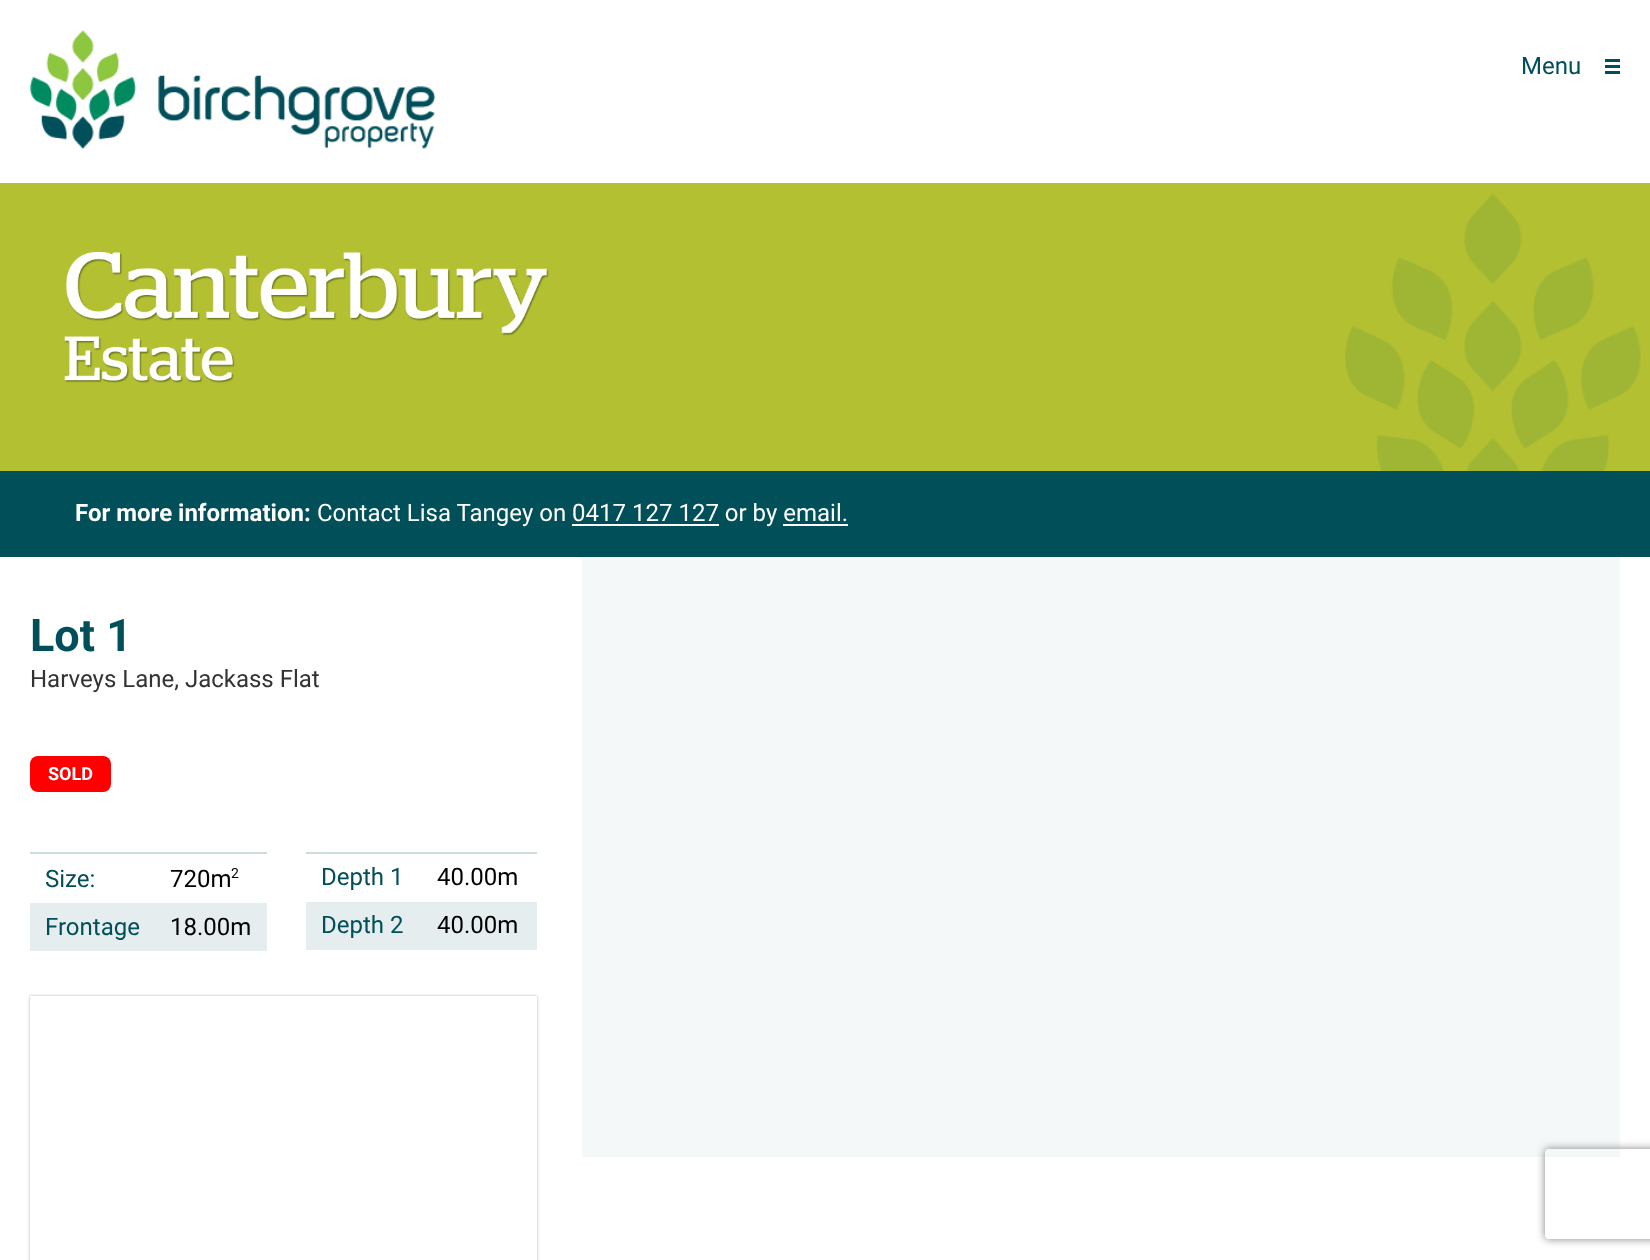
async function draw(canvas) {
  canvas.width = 1650;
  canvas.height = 1260;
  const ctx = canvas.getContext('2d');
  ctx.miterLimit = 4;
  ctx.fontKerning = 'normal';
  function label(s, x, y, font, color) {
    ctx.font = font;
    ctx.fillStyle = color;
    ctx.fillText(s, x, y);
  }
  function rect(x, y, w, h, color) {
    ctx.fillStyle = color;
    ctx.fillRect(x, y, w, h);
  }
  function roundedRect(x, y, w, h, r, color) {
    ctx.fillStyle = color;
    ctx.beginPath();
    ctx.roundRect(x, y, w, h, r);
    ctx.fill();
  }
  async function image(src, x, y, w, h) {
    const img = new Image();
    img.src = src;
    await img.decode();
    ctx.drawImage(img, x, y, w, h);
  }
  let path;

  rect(0, 0, 1650, 1260, '#fff');
  await image('assets/img1.png', 30, 30, 405, 119);
  label('Menu', 1521, 74, '24px Roboto', '#004f59');
  rect(1605, 59, 15, 3, '#004f5a');
  rect(1605, 65, 15, 3, '#004f5a');
  rect(1605, 71, 15, 3, '#004f5a');
  rect(0, 183, 1650, 288, '#b2c032');
  await image('assets/img2.png', 64, 252, 485, 131);
  await image('assets/img3.png', 1345, 193, 296, 278);
  rect(0, 471, 1650, 86, '#004f59');
  label('For more information:', 75, 521, 'bold 24px Roboto', '#fff');
  label('Contact Lisa Tangey on 0417 127 127 or by email.', 317, 521, '24px Roboto', '#fff');
  rect(572, 524, 147, 2, '#fff');
  rect(783, 524, 65, 2, '#fff');
  label('Lot 1', 30, 651, 'bold 45px Roboto', '#004f59');
  label('Harveys Lane, Jackass Flat', 30, 687, '24px Roboto', '#333');
  roundedRect(30, 756, 81, 36, 8, '#f00');
  label('SOLD', 48, 780, 'bold 18px Roboto', '#fff');
  rect(30, 852, 237, 2, '#ccdcde');
  label('Size:', 45, 887, '24px Roboto', '#004f59');
  label('720m', 170, 887, '24px Roboto', '#000');
  label('2', 231, 878, '14px Roboto', '#000');
  rect(30, 903, 237, 48, '#e5edee');
  label('Frontage', 45, 935, '24px Roboto', '#004f59');
  label('18.00m', 170, 935, '24px Roboto', '#000');
  rect(306, 852, 231, 2, '#ccdcde');
  label('Depth 1', 321, 885, '24px Roboto', '#004f59');
  label('40.00m', 437, 885, '24px Roboto', '#000');
  rect(306, 902, 231, 48, '#e5edee');
  label('Depth 2', 321, 933, '24px Roboto', '#004f59');
  label('40.00m', 437, 933, '24px Roboto', '#000');
  ctx.save();
  path = new Path2D('M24 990H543V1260H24ZM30 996H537V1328H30Z');
  ctx.clip(path, 'evenodd');
  ctx.fillStyle = '#0000004d';
  ctx.filter = 'blur(1.5px)';
  ctx.beginPath();
  ctx.rect(30, 996, 507, 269);
  ctx.fill();
  ctx.filter = 'none';
  ctx.restore();
  rect(582, 557, 1038, 600, '#f5f8f9');
  ctx.save();
  path = new Path2D('M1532 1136H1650V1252H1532ZM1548 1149H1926C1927.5 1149 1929 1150.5 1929 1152V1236C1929 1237.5 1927.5 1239 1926 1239H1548C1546.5 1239 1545 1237.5 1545 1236V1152C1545 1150.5 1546.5 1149 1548 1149Z');
  ctx.clip(path, 'evenodd');
  ctx.fillStyle = '#808080';
  ctx.filter = 'blur(4px)';
  ctx.beginPath();
  ctx.roundRect(1545, 1149, 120, 90, 3);
  ctx.fill();
  ctx.filter = 'none';
  ctx.restore();
}

draw(document.querySelector('canvas'));
